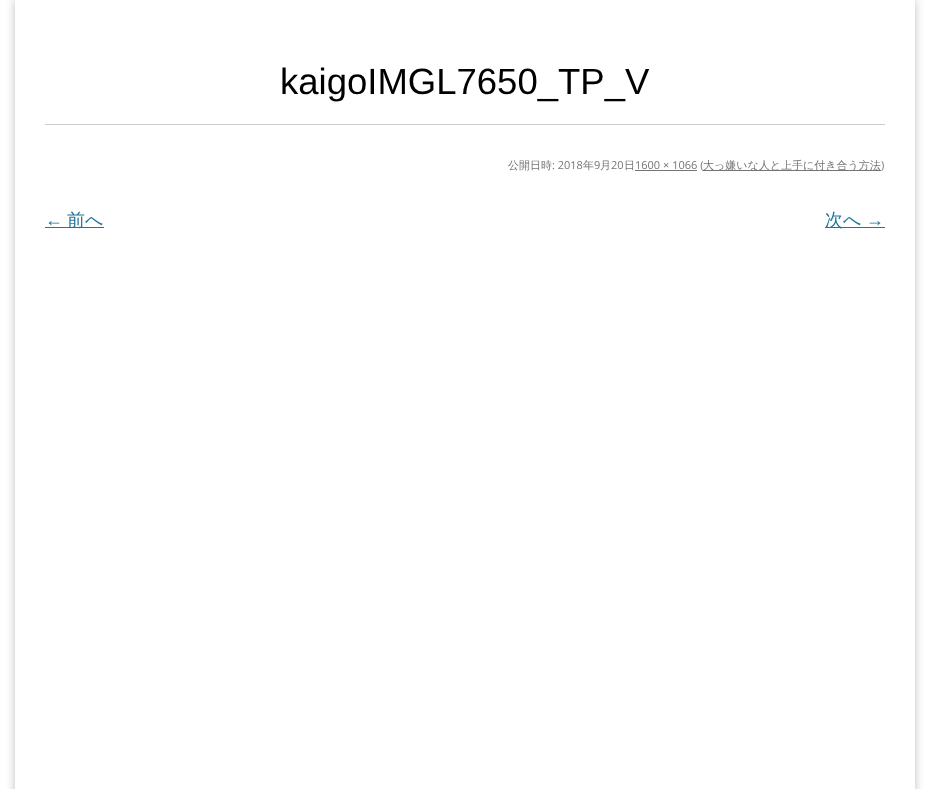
async function draw(canvas) {
  canvas.width = 929;
  canvas.height = 789;
  const ctx = canvas.getContext('2d');
  ctx.miterLimit = 4;
  ctx.fontKerning = 'normal';
  function label(s, x, y, font, color) {
    ctx.font = font;
    ctx.fillStyle = color;
    ctx.fillText(s, x, y);
  }
  function rect(x, y, w, h, color) {
    ctx.fillStyle = color;
    ctx.fillRect(x, y, w, h);
  }
  let path;

  rect(0, 0, 929, 789, '#fff');
  ctx.save();
  path = new Path2D('M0 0H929V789H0ZM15 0H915V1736H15Z');
  ctx.clip(path, 'evenodd');
  ctx.fillStyle = '#00000040';
  ctx.filter = 'blur(5px)';
  ctx.beginPath();
  ctx.rect(15, 0, 900, 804);
  ctx.fill();
  ctx.filter = 'none';
  ctx.restore();
  rect(45, 124, 840, 1, '#ccc');
  label('kaigoIMGL7650_TP_V', 280, 94, '36.5px Liberation Sans', '#000');
  label('公開日時', 508, 169, '500 11px WenQuanYi Zen Hei', '#757575');
  label(': 2018', 552, 169, '11px Open Sans', '#757575');
  label('年', 583, 169, '500 11px WenQuanYi Zen Hei', '#757575');
  label('9', 594, 169, '11px Open Sans', '#757575');
  label('月', 600, 169, '500 11px WenQuanYi Zen Hei', '#757575');
  label('20', 611, 169, '11px Open Sans', '#757575');
  label('日', 624, 169, '500 11px WenQuanYi Zen Hei', '#757575');
  rect(635, 170, 62, 1, '#757575');
  label('1600 × 1066 (', 635, 169, '11px Open Sans', '#757575');
  rect(703, 170, 178, 1, '#757575');
  label('大っ嫌いな人と上手に付き合う方法', 703, 169, '500 11px WenQuanYi Zen Hei', '#757575');
  label(')', 881, 169, '11px Open Sans', '#757575');
  label('←', 45, 226, '18px Liberation Sans', '#21759b');
  rect(45, 227, 59, 1, '#21759b');
  label('前へ', 67, 226, '500 18px WenQuanYi Zen Hei', '#21759b');
  rect(825, 227, 60, 1, '#21759b');
  label('次へ', 825, 226, '500 18px WenQuanYi Zen Hei', '#21759b');
  label('→', 866, 226, '18px Liberation Sans', '#21759b');
}

draw(document.querySelector('canvas'));
